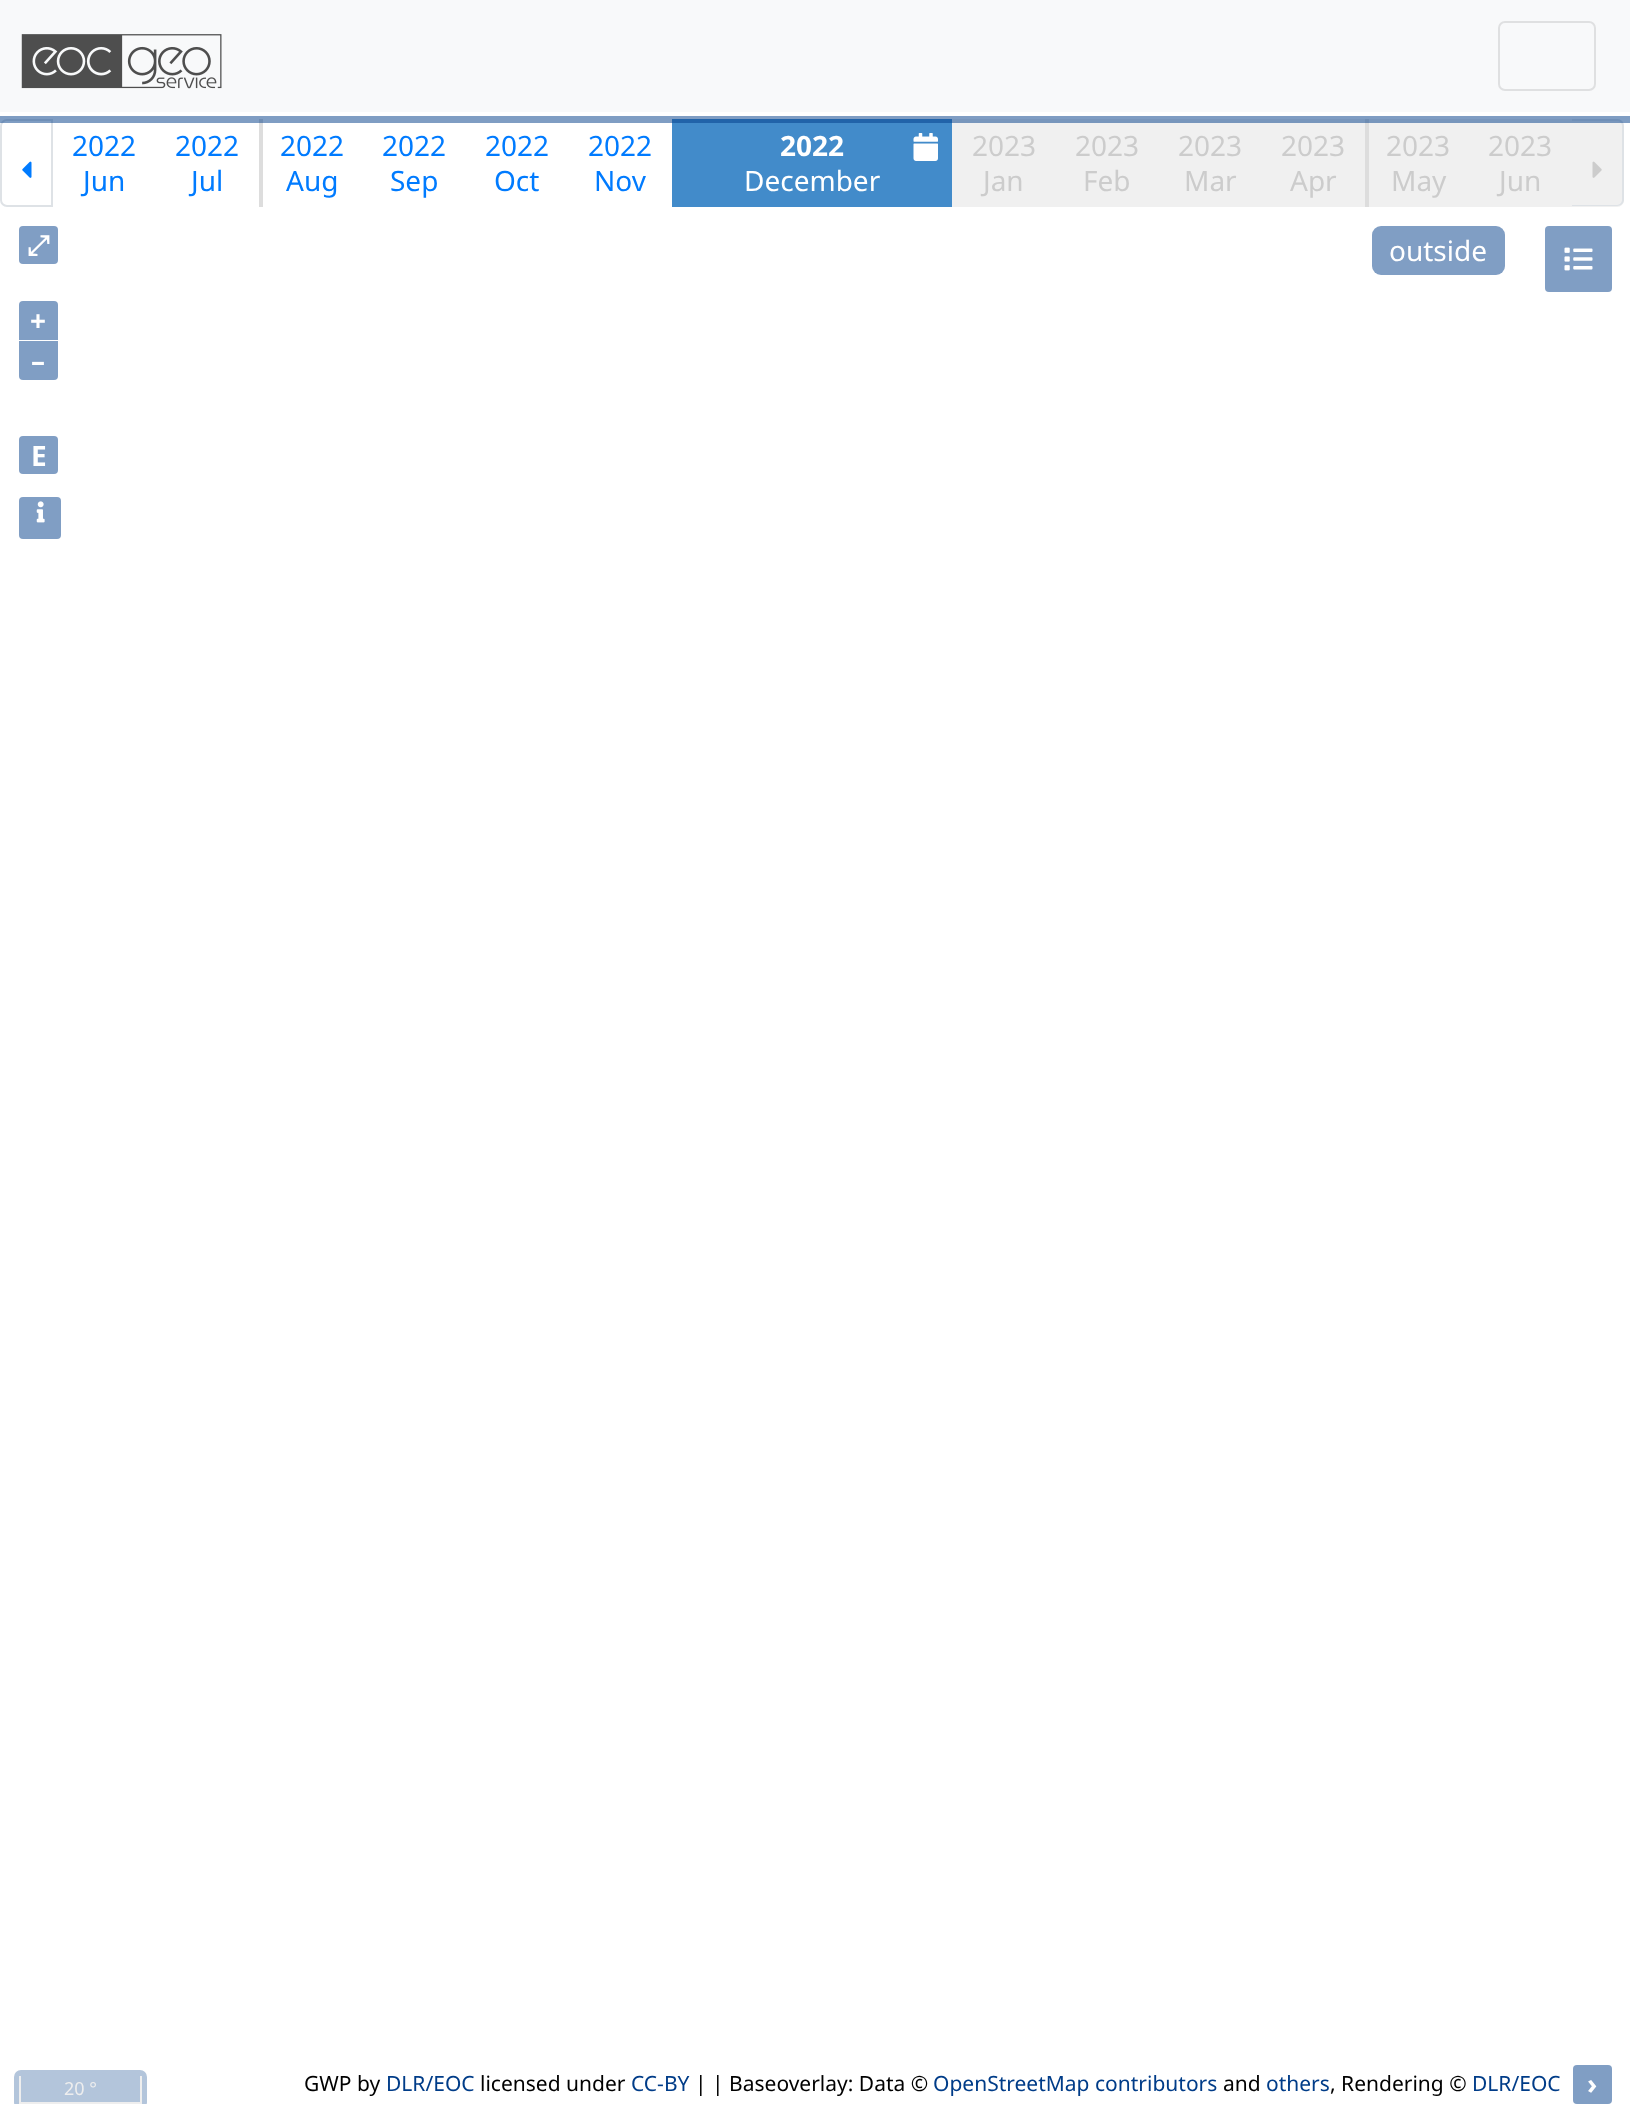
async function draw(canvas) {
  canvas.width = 1630;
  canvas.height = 2104;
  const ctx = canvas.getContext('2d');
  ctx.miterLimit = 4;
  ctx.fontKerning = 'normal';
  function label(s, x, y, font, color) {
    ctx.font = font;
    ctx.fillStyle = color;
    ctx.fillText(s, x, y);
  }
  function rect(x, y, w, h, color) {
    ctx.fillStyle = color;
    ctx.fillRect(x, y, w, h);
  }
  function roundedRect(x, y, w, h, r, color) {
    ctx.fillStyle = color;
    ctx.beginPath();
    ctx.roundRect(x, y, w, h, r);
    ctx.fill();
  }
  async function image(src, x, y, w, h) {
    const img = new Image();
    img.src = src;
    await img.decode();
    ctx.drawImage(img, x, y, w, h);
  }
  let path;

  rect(0, 0, 1630, 2104, '#fff');
  rect(0, 0, 1630, 112, '#f8f9fa');
  await image('assets/img1.png', 21, 34, 201, 55);
  ctx.beginPath();
  ctx.roundRect(1499, 22, 96, 68, 6);
  ctx.strokeStyle = '#dfe0e1';
  ctx.lineWidth = 2;
  ctx.stroke();
  ctx.beginPath();
  ctx.roundRect(1, 120, 51, 86, [6, 0, 0, 6]);
  ctx.strokeStyle = '#dee2e6';
  ctx.stroke();
  rect(259, 119, 4, 88, '#ddd');
  rect(672, 119, 280, 88, '#428bca');
  rect(952, 119, 413, 88, '#f0f0f0');
  rect(1369, 119, 203, 88, '#f0f0f0');
  rect(1365, 119, 4, 88, '#ddd');
  ctx.fillStyle = '#f0f0f0';
  ctx.beginPath();
  ctx.roundRect(1572, 119, 52, 88, [0, 7, 7, 0]);
  ctx.fill();
  ctx.fillStyle = '#dee2e6';
  path = new Path2D('M1572 119H1617C1621 119 1624 122 1624 126V200C1624 203 1621 206 1617 206H1572ZM1572 121H1617C1620 121 1622 123 1622 126V200C1622 202 1620 205 1617 205H1572Z');
  ctx.fill(path, 'evenodd');
  rect(0, 116, 1630, 7, '#003c8880');
  await image('assets/img2.png', 22, 161, 10, 17);
  label('2022', 72, 156, '28px Noto Sans', '#007bff');
  label('Jun', 83, 191, '28px Noto Sans', '#007bff');
  label('2022', 175, 156, '28px Noto Sans', '#007bff');
  label('Jul', 191, 191, '28px Noto Sans', '#007bff');
  label('2022', 280, 156, '28px Noto Sans', '#007bff');
  label('Aug', 286, 191, '28px Noto Sans', '#007bff');
  label('2022', 382, 156, '28px Noto Sans', '#007bff');
  label('Sep', 390, 191, '28px Noto Sans', '#007bff');
  label('2022', 485, 156, '28px Noto Sans', '#007bff');
  label('Oct', 494, 191, '28px Noto Sans', '#007bff');
  label('2022', 588, 156, '28px Noto Sans', '#007bff');
  label('Nov', 594, 191, '28px Noto Sans', '#007bff');
  label('2022', 780, 156, 'bold 28px Noto Sans', '#fff');
  await image('assets/img3.png', 913, 133, 25, 28);
  label('December', 744, 191, '28px Noto Sans', '#fff');
  label('2023', 972, 156, '28px Noto Sans', '#ccc');
  label('Jan', 983, 191, '28px Noto Sans', '#ccc');
  label('2023', 1075, 156, '28px Noto Sans', '#ccc');
  label('Feb', 1083, 191, '28px Noto Sans', '#ccc');
  label('2023', 1178, 156, '28px Noto Sans', '#ccc');
  label('Mar', 1184, 191, '28px Noto Sans', '#ccc');
  label('2023', 1281, 156, '28px Noto Sans', '#ccc');
  label('Apr', 1290, 191, '28px Noto Sans', '#ccc');
  label('2023', 1386, 156, '28px Noto Sans', '#ccc');
  label('May', 1391, 191, '28px Noto Sans', '#ccc');
  label('2023', 1488, 156, '28px Noto Sans', '#ccc');
  label('Jun', 1499, 191, '28px Noto Sans', '#ccc');
  await image('assets/img4.png', 1592, 161, 10, 17);
  roundedRect(19, 226, 39, 38, 4, '#809ec4');
  label('⤢', 27, 255, 'bold 28px FreeSerif', '#fff');
  roundedRect(1372, 226, 133, 49, 9, '#809ec4');
  label('outside', 1389, 261, '28px Noto Sans', '#fff');
  roundedRect(1545, 226, 67, 66, 4, '#809ec4');
  await image('assets/img5.png', 1564, 247, 29, 24);
  ctx.beginPath();
  ctx.roundRect(19, 301, 39, 39, [4, 4, 0, 0]);
  ctx.fill();
  label('+', 30, 331, 'bold 28px Noto Sans', '#fff');
  ctx.fillStyle = '#809ec4';
  ctx.beginPath();
  ctx.roundRect(19, 341, 39, 39, [0, 0, 4, 4]);
  ctx.fill();
  label('–', 31, 371, 'bold 28px Noto Sans', '#fff');
  roundedRect(19, 436, 39, 38, 4, '#809ec4');
  label('E', 31, 466, 'bold 28px Noto Sans', '#fff');
  roundedRect(19, 497, 42, 42, 4, '#809ec4');
  await image('assets/img6.png', 36, 501, 9, 22);
  roundedRect(14, 2070, 133, 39, 7, '#b3c5db');
  rect(140, 2076, 2, 28, '#eee');
  rect(19, 2102, 123, 2, '#eee');
  rect(19, 2076, 2, 28, '#eee');
  label('20 °', 64, 2095, '18px Noto Sans', '#eee');
  label('GWP by', 304, 2091, '21px Noto Sans', '#000');
  label('DLR/EOC', 386, 2091, '21px Noto Sans', '#003c88');
  label('licensed under', 480, 2091, '21px Noto Sans', '#000');
  label('CC-BY', 631, 2091, '21px Noto Sans', '#003c88');
  label('| | Baseoverlay: Data ©', 695, 2091, '21px Noto Sans', '#000');
  label('OpenStreetMap contributors', 933, 2091, '21px Noto Sans', '#003c88');
  label('and', 1223, 2091, '21px Noto Sans', '#000');
  label('others', 1266, 2091, '21px Noto Sans', '#003c88');
  label(', Rendering ©', 1330, 2091, '21px Noto Sans', '#000');
  label('DLR/EOC', 1472, 2091, '21px Noto Sans', '#003c88');
  roundedRect(1573, 2065, 39, 39, 4, '#809ec4');
  label('›', 1587, 2094, 'bold 28px Noto Sans', '#fff');
}

draw(document.querySelector('canvas'));
